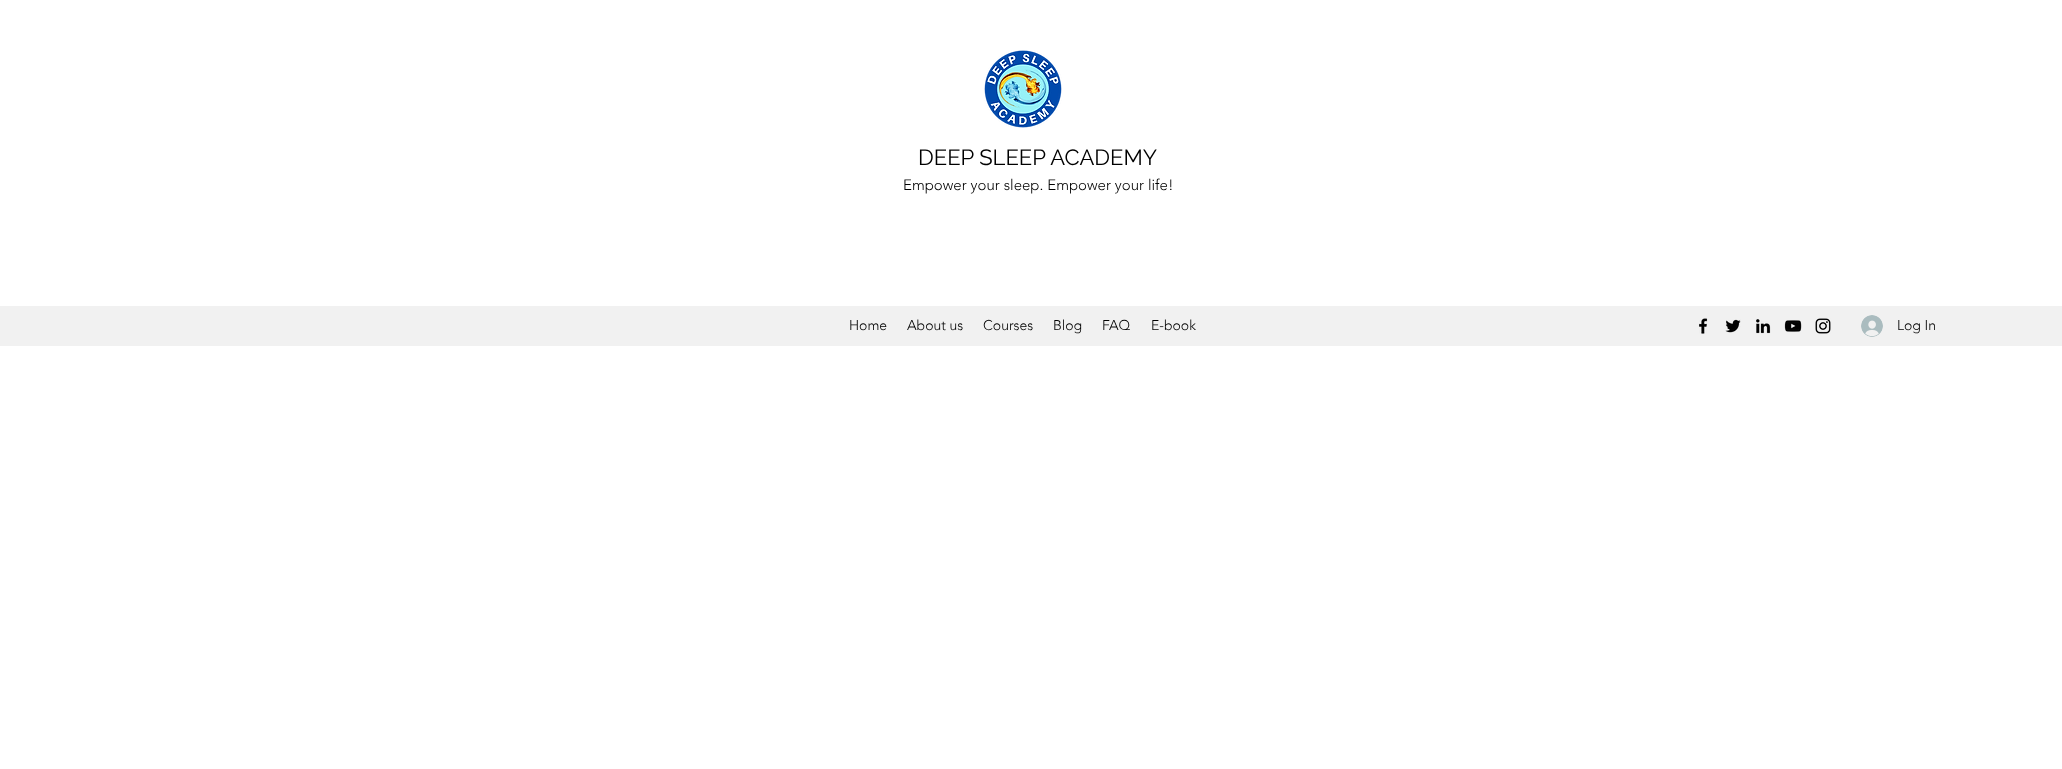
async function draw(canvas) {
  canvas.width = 2062;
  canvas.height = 769;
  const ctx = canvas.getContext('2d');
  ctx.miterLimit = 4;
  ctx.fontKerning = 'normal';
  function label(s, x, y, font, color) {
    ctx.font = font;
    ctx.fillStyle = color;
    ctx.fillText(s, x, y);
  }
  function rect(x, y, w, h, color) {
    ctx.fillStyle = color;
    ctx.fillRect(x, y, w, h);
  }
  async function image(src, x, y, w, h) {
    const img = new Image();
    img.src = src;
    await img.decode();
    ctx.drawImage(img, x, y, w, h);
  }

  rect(0, 0, 2062, 769, '#fff');
  await image('assets/img1.png', 984, 50, 78, 78);
  label('DEEP SLEEP ACADEMY', 918, 165, '22px Raleway', '#000');
  label('Empower your sleep. Empower your life!', 903, 190, '300 15px "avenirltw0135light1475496"', '#000');
  rect(0, 306, 2062, 40, '#f1f1f1');
  label('Home', 849, 330, '300 14px "avenirltw0135light1475496"', '#000');
  label('About us', 907, 330, '300 14px "avenirltw0135light1475496"', '#000');
  label('Courses', 983, 330, '300 14px "avenirltw0135light1475496"', '#000');
  label('Blog', 1053, 330, '300 14px "avenirltw0135light1475496"', '#000');
  label('FAQ', 1102, 330, '300 14px "avenirltw0135light1475496"', '#000');
  label('E-book', 1151, 330, '300 14px "avenirltw0135light1475496"', '#000');
  await image('assets/img2.png', 1699, 318, 9, 16);
  await image('assets/img3.png', 1725, 319, 16, 14);
  await image('assets/img4.png', 1756, 319, 15, 15);
  await image('assets/img5.png', 1784, 320, 18, 12);
  await image('assets/img6.png', 1815, 318, 16, 16);
  await image('assets/img7.png', 1861, 315, 22, 22);
  label('Log In', 1897, 330, '300 14px "avenirltw0135light1475496"', '#000');
}

draw(document.querySelector('canvas'));
